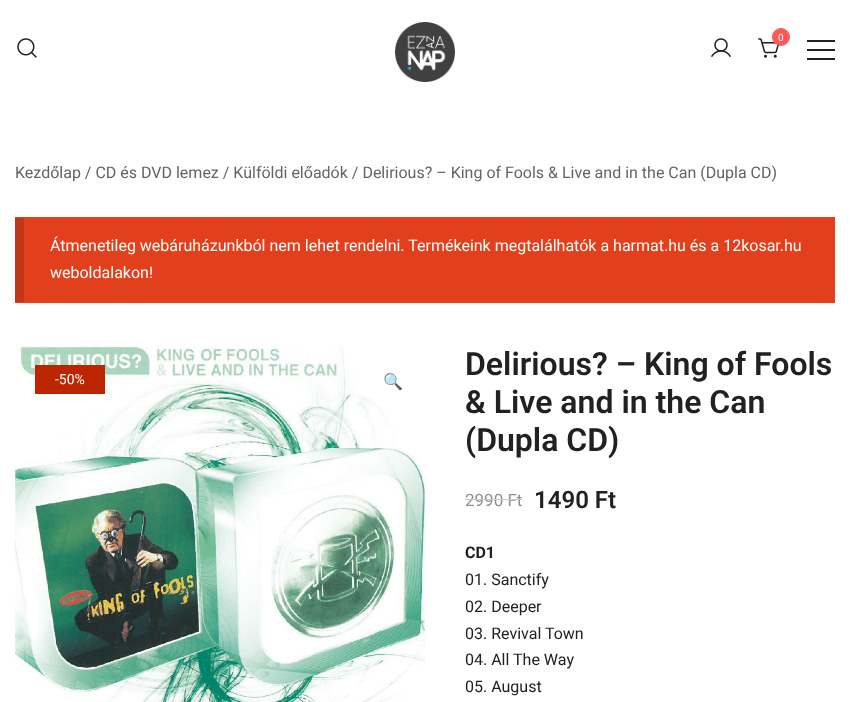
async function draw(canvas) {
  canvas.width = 850;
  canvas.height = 702;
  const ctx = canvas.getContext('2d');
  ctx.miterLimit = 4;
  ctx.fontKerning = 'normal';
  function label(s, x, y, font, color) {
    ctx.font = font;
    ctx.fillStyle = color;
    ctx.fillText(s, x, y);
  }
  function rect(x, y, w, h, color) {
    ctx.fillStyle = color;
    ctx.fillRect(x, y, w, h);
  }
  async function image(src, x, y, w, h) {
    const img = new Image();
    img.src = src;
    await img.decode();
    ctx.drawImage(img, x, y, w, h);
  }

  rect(0, 0, 850, 702, '#fff');
  await image('assets/img1.png', 17, 38, 20, 20);
  await image('assets/img2.png', 395, 22, 60, 60);
  await image('assets/img3.png', 711, 38, 20, 19);
  await image('assets/img4.png', 758, 38, 21, 20);
  ctx.fillStyle = '#ff5858';
  ctx.beginPath();
  ctx.arc(781, 37, 8.5, 0, 2 * Math.PI);
  ctx.fill();
  ctx.strokeStyle = '#ff5858';
  ctx.stroke();
  label('0', 778, 41, '10px Roboto', '#fff');
  rect(807, 40, 28, 2, '#212121');
  rect(807, 49, 28, 2, '#212121');
  rect(807, 58, 28, 2, '#212121');
  label('Kezdőlap / CD és DVD lemez / Külföldi előadók / Delirious? – King of Fools & Live and in the Can (Dupla CD)', 15, 178, '16px Roboto', '#646464');
  rect(15, 217, 820, 86, '#e2401c');
  rect(15, 218, 9, 84, '#c03618');
  label('Átmenetileg webáruházunkból nem lehet rendelni. Termékeink megtalálhatók a harmat.hu és a 12kosar.hu', 50, 251, '16px Roboto', '#fff');
  label('weboldalakon!', 50, 278, '16px Roboto', '#fff');
  await image('assets/img5.png', 15, 345, 410, 357);
  rect(35, 365, 70, 29, '#bc2500');
  label('-50%', 55, 384, '14px Roboto', '#fff');
  label('🔍', 383, 387, '16px Noto Color Emoji', '#212121');
  label('Delirious? – King of Fools', 465, 375, '600 32px Roboto', '#212121');
  label('& Live and in the Can', 465, 413, '600 32px Roboto', '#212121');
  label('(Dupla CD)', 465, 451, '600 32px Roboto', '#212121');
  label('2990 Ft', 465, 506, '17px Roboto', '#909090');
  rect(465, 499, 57, 1, '#ccc');
  label('1490 Ft', 534, 508, '600 24px Roboto', '#212121');
  label('CD1', 465, 558, 'bold 16px Roboto', '#212121');
  label('01. Sanctify', 465, 585, '16px Roboto', '#212121');
  label('02. Deeper', 465, 612, '16px Roboto', '#212121');
  label('03. Revival Town', 465, 639, '16px Roboto', '#212121');
  label('04. All The Way', 465, 665, '16px Roboto', '#212121');
  label('05. August', 465, 692, '16px Roboto', '#212121');
}

draw(document.querySelector('canvas'));
